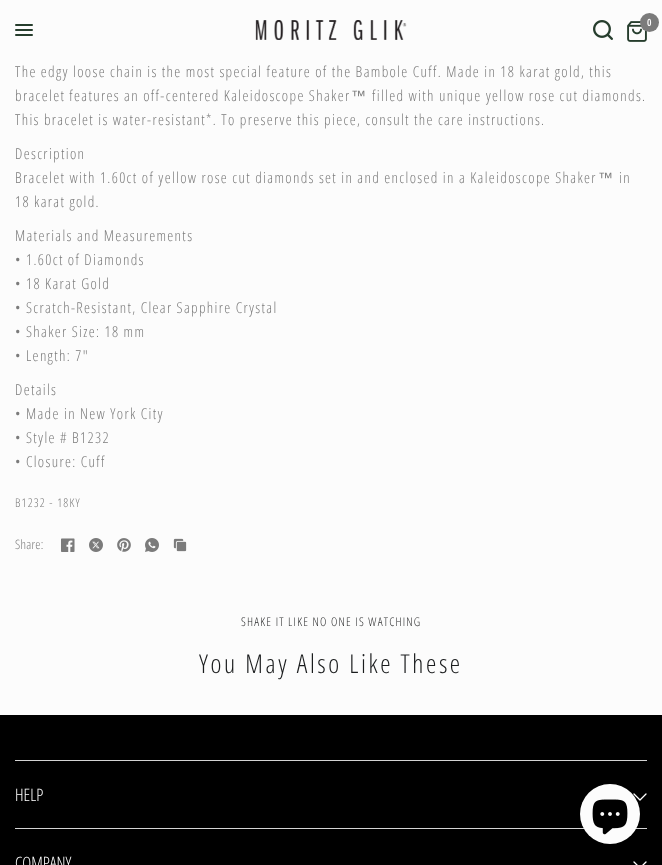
async function draw(canvas) {
  canvas.width = 662;
  canvas.height = 865;
  const ctx = canvas.getContext('2d');
  ctx.miterLimit = 4;
  ctx.fontKerning = 'normal';
  function label(s, x, y, font, color) {
    ctx.font = font;
    ctx.fillStyle = color;
    ctx.fillText(s, x, y);
  }
  function rect(x, y, w, h, color) {
    ctx.fillStyle = color;
    ctx.fillRect(x, y, w, h);
  }
  function roundedRect(x, y, w, h, r, color) {
    ctx.fillStyle = color;
    ctx.beginPath();
    ctx.roundRect(x, y, w, h, r);
    ctx.fill();
  }
  async function image(src, x, y, w, h) {
    const img = new Image();
    img.src = src;
    await img.decode();
    ctx.drawImage(img, x, y, w, h);
  }
  let path;

  rect(0, 0, 662, 865, '#fcfcfc');
  roundedRect(15, 24, 18, 2, 1, '#263d2d');
  roundedRect(15, 29, 18, 2, 1, '#263d2d');
  roundedRect(15, 34, 18, 2, 1, '#263d2d');
  await image('assets/img1.png', 255, 20, 152, 20);
  await image('assets/img2.png', 593, 20, 20, 20);
  await image('assets/img3.png', 627, 21, 20, 21);
  ctx.fillStyle = '#7b7b7b';
  ctx.beginPath();
  ctx.arc(649.5, 22.5, 9.5, 0, 2 * Math.PI);
  ctx.fill();
  ctx.letterSpacing = '1.35px';
  label('0', 647, 26, '600 10px Open Sans Condensed', '#fff');
  label('The edgy loose chain is the most special feature of the Bambole Cuff. Made in 18 karat gold, this', 15, 77, '300 15px Open Sans Condensed', '#7b7b7b');
  label('bracelet features an off-centered Kaleidoscope Shaker', 15, 101, '300 15px Open Sans Condensed', '#7b7b7b');
  label('™', 351, 101, '15px Liberation Sans', '#7b7b7b');
  label('filled with unique yellow rose cut diamonds.', 372, 101, '300 15px Open Sans Condensed', '#7b7b7b');
  label('This bracelet is water-resistant*. To preserve this piece, consult the care instructions.', 15, 125, '300 15px Open Sans Condensed', '#7b7b7b');
  label('Description', 15, 159, '300 15px Open Sans Condensed', '#7b7b7b');
  label('Bracelet with 1.60ct of yellow rose cut diamonds set in and enclosed in a Kaleidoscope Shaker', 15, 183, '300 15px Open Sans Condensed', '#7b7b7b');
  label('™', 598, 183, '15px Liberation Sans', '#7b7b7b');
  label('in', 619, 183, '300 15px Open Sans Condensed', '#7b7b7b');
  label('18 karat gold.', 15, 207, '300 15px Open Sans Condensed', '#7b7b7b');
  label('Materials and Measurements', 15, 241, '300 15px Open Sans Condensed', '#7b7b7b');
  label('• 1.60ct of Diamonds', 15, 265, '300 15px Open Sans Condensed', '#7b7b7b');
  label('• 18 Karat Gold', 15, 289, '300 15px Open Sans Condensed', '#7b7b7b');
  label('• Scratch-Resistant, Clear Sapphire Crystal', 15, 313, '300 15px Open Sans Condensed', '#7b7b7b');
  label('• Shaker Size: 18 mm', 15, 337, '300 15px Open Sans Condensed', '#7b7b7b');
  label('• Length: 7"', 15, 361, '300 15px Open Sans Condensed', '#7b7b7b');
  label('Details', 15, 395, '300 15px Open Sans Condensed', '#7b7b7b');
  label('• Made in New York City', 15, 419, '300 15px Open Sans Condensed', '#7b7b7b');
  label('• Style # B1232', 15, 443, '300 15px Open Sans Condensed', '#7b7b7b');
  label('• Closure: Cuff', 15, 467, '300 15px Open Sans Condensed', '#7b7b7b');
  ctx.letterSpacing = '1.2px';
  label('B1232 - 18KY', 15, 507, '300 12px Open Sans Condensed', '#7b7b7b');
  ctx.letterSpacing = '0.25px';
  label('Share:', 15, 549, '300 13px Open Sans Condensed', '#7b7b7b');
  await image('assets/img4.png', 61, 538, 14, 14);
  await image('assets/img5.png', 89, 538, 14, 14);
  await image('assets/img6.png', 117, 538, 14, 14);
  await image('assets/img7.png', 145, 538, 14, 14);
  await image('assets/img8.png', 173, 538, 14, 14);
  ctx.letterSpacing = '1.2px';
  label('SHAKE IT LIKE NO ONE IS WATCHING', 241, 626, '300 12px Open Sans Condensed', '#2c2d2e');
  ctx.letterSpacing = '2.6px';
  label('You May Also Like These', 199, 673, '300 26px Open Sans Condensed', '#1a1c1d');
  rect(0, 715, 662, 150, '#000');
  rect(15, 760, 632, 1, '#d3d3d3');
  ctx.letterSpacing = '0px';
  label('HELP', 15, 801, '300 17px Open Sans Condensed', '#fff');
  path = new Path2D('M646 794L640 800L634 794');
  ctx.strokeStyle = '#fff';
  ctx.lineWidth = 1.3;
  ctx.lineCap = 'round';
  ctx.lineJoin = 'round';
  ctx.stroke(path);
  rect(15, 828, 632, 1, '#d3d3d3');
  label('COMPANY', 15, 869, '300 17px Open Sans Condensed', '#fff');
  path = new Path2D('M646 862L640 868L634 862');
  ctx.stroke(path);
  ctx.fillStyle = '#fcfcfc';
  ctx.beginPath();
  ctx.arc(610, 814, 30, 0, 2 * Math.PI);
  ctx.fill();
  await image('assets/img9.png', 592, 799, 36, 36);
}

draw(document.querySelector('canvas'));
